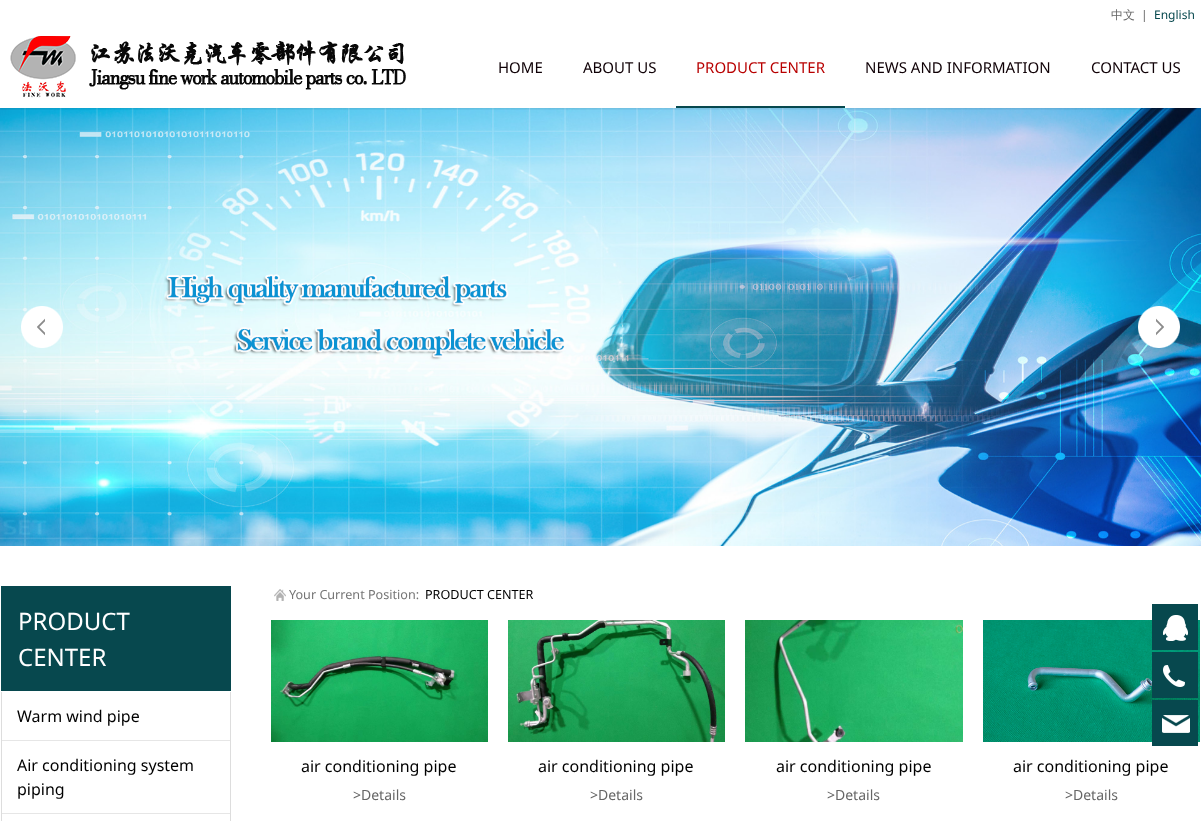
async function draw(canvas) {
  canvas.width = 1201;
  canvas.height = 821;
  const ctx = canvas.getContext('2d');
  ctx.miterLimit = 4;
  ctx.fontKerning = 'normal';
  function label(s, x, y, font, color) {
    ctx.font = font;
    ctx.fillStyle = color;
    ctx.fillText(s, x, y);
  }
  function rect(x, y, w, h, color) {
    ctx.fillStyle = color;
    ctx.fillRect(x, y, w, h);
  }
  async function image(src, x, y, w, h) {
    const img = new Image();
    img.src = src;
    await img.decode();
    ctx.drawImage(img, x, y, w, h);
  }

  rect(0, 0, 1201, 821, '#fff');
  label('中文', 1111, 19, '500 12px WenQuanYi Zen Hei', '#666');
  label('|', 1141, 19, '12px Noto Sans', '#666');
  label('English', 1154, 19, '12px Noto Sans', '#07484e');
  await image('assets/img2.png', 0, 108, 1201, 438);
  ctx.save();
  ctx.beginPath();
  ctx.rect(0, 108, 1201, 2);
  ctx.clip();
  ctx.fillStyle = '#0000001a';
  ctx.filter = 'blur(1px)';
  ctx.beginPath();
  ctx.rect(0, 27, 1201, 82);
  ctx.fill();
  ctx.filter = 'none';
  ctx.restore();
  await image('assets/img1.png', 10, 36, 396, 62);
  label('HOME', 498, 73, '15px Noto Sans', '#0f0006');
  label('ABOUT US', 583, 73, '15px Noto Sans', '#0f0006');
  label('PRODUCT CENTER', 696, 73, '15px Noto Sans', '#b80000');
  rect(676, 106, 169, 2, '#07484e');
  label('NEWS AND INFORMATION', 865, 73, '15px Noto Sans', '#0f0006');
  label('CONTACT US', 1091, 73, '15px Noto Sans', '#0f0006');
  await image('assets/img3.png', 21, 306, 42, 42);
  await image('assets/img4.png', 1138, 306, 42, 42);
  rect(1, 586, 230, 105, '#07484e');
  label('PRODUCT', 18, 630, '24px Noto Sans', '#fff');
  label('CENTER', 18, 666, '24px Noto Sans', '#fff');
  rect(230, 692, 1, 129, '#ddd');
  rect(1, 692, 1, 129, '#ddd');
  rect(2, 740, 228, 1, '#e6e6e6');
  label('Warm wind pipe', 17, 722, '16px Noto Sans', '#000');
  rect(2, 813, 228, 1, '#e6e6e6');
  label('Air conditioning system', 17, 771, '16px Noto Sans', '#000');
  label('piping', 17, 795, '16px Noto Sans', '#000');
  await image('assets/img5.png', 274, 589, 12, 12);
  label('Your Current Position:', 289, 599, '12.6px Noto Sans', '#757575');
  label('PRODUCT CENTER', 425, 599, '12.6px Noto Sans', '#000');
  await image('assets/img6.png', 271, 620, 217, 122);
  label('air conditioning pipe', 301, 772, '16px Noto Sans', '#000');
  label('>Details', 353, 800, '14px Noto Sans', '#666');
  await image('assets/img7.png', 508, 620, 217, 122);
  label('air conditioning pipe', 538, 772, '16px Noto Sans', '#000');
  label('>Details', 590, 800, '14px Noto Sans', '#666');
  await image('assets/img8.png', 745, 620, 218, 122);
  label('air conditioning pipe', 776, 772, '16px Noto Sans', '#000');
  label('>Details', 827, 800, '14px Noto Sans', '#666');
  await image('assets/img9.png', 983, 620, 217, 122);
  label('air conditioning pipe', 1013, 772, '16px Noto Sans', '#000');
  label('>Details', 1065, 800, '14px Noto Sans', '#666');
  rect(1152, 604, 46, 46, '#07484e');
  await image('assets/img10.png', 1163, 615, 25, 26);
  rect(1152, 652, 46, 46, '#07484e');
  await image('assets/img11.png', 1163, 665, 22, 22);
  rect(1152, 700, 46, 46, '#07484e');
  await image('assets/img12.png', 1162, 715, 28, 18);
}

draw(document.querySelector('canvas'));
